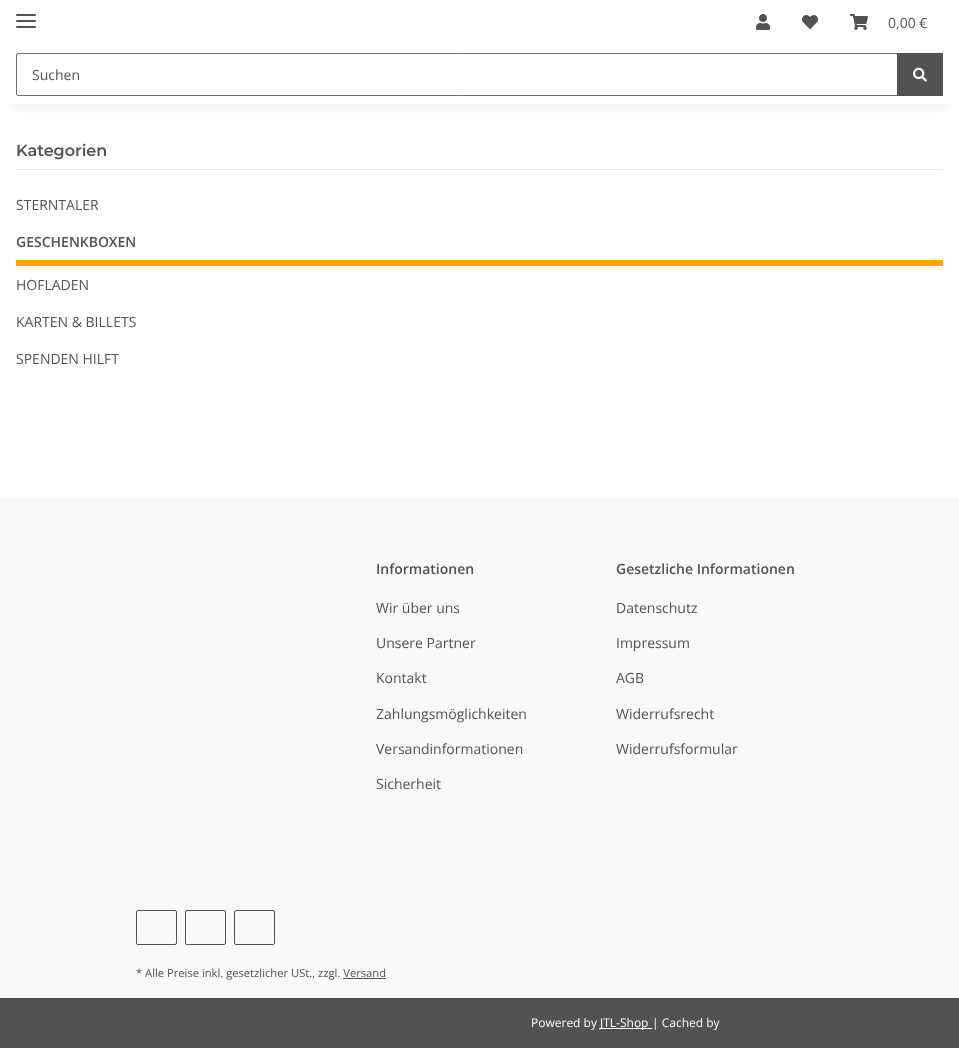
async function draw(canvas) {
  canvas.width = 959;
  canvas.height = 1048;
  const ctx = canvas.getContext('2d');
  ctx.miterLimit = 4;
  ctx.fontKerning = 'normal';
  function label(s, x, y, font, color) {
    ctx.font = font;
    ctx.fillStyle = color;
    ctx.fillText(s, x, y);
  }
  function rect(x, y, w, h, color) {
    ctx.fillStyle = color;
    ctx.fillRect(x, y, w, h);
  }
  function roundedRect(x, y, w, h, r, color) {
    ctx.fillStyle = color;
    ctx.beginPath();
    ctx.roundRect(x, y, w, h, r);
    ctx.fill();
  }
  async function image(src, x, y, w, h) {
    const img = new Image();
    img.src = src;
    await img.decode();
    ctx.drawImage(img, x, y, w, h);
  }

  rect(0, 0, 959, 1048, '#faf8f9');
  rect(0, 104, 959, 393, '#fff');
  ctx.fillStyle = '#0000000f';
  ctx.filter = 'blur(4.5px)';
  ctx.beginPath();
  ctx.rect(12, 28, 935, 80);
  ctx.fill();
  ctx.filter = 'none';
  rect(0, 0, 959, 104, '#fff');
  roundedRect(16, 20, 20, 2, 1, '#525252');
  roundedRect(16, 14, 20, 2, 1, '#525252');
  roundedRect(16, 26, 20, 2, 1, '#525252');
  await image('assets/img1.png', 756, 14, 14, 16);
  await image('assets/img2.png', 802, 15, 16, 14);
  await image('assets/img3.png', 850, 14, 18, 16);
  label('0,00 €', 888, 28, '14px Open Sans', '#525252');
  ctx.beginPath();
  ctx.roundRect(16.5, 53.5, 881, 42, [1.5, 0, 0, 1.5]);
  ctx.strokeStyle = '#707070';
  ctx.stroke();
  label('Suchen', 32, 80, '14px Open Sans', '#525252');
  rect(897, 53, 46, 43, '#525252');
  await image('assets/img4.png', 913, 67, 14, 15);
  rect(16, 169, 927, 1, '#ebebeb');
  label('Kategorien', 16, 156, '600 16px Montserrat', '#525252');
  label('STERNTALER', 16, 210, '14px Open Sans', '#525252');
  rect(16, 260, 927, 6, '#ffa300');
  label('GESCHENKBOXEN', 16, 247, '600 14px Open Sans', '#525252');
  label('HOFLADEN', 16, 290, '14px Open Sans', '#525252');
  label('KARTEN & BILLETS', 16, 327, '14px Open Sans', '#525252');
  label('SPENDEN HILFT', 16, 364, '14px Open Sans', '#525252');
  label('Informationen', 376, 574, '600 14px Open Sans', '#525252');
  label('Wir über uns', 376, 613, '14px Open Sans', '#525252');
  label('Unsere Partner', 376, 648, '14px Open Sans', '#525252');
  label('Kontakt', 376, 683, '14px Open Sans', '#525252');
  label('Zahlungsmöglichkeiten', 376, 719, '14px Open Sans', '#525252');
  label('Versandinformationen', 376, 754, '14px Open Sans', '#525252');
  label('Sicherheit', 376, 789, '14px Open Sans', '#525252');
  label('Gesetzliche Informationen', 616, 574, '600 14px Open Sans', '#525252');
  label('Datenschutz', 616, 613, '14px Open Sans', '#525252');
  label('Impressum', 616, 648, '14px Open Sans', '#525252');
  label('AGB', 616, 683, '14px Open Sans', '#525252');
  label('Widerrufsrecht', 616, 719, '14px Open Sans', '#525252');
  label('Widerrufsformular', 616, 754, '14px Open Sans', '#525252');
  ctx.beginPath();
  ctx.roundRect(136.5, 910.5, 40, 34, 1.5);
  ctx.strokeStyle = '#525252';
  ctx.stroke();
  ctx.beginPath();
  ctx.roundRect(185.5, 910.5, 40, 34, 1.5);
  ctx.stroke();
  ctx.beginPath();
  ctx.roundRect(234.5, 910.5, 40, 34, 1.5);
  ctx.stroke();
  label('* Alle Preise inkl. gesetzlicher USt., zzgl. Versand', 136, 977, '11.2px Open Sans', '#525252');
  rect(343, 978, 43, 1, '#525252');
  rect(0, 998, 959, 50, '#525252');
  label('Powered by', 531, 1027, '12px Open Sans', '#f5f7fa');
  rect(600, 1028, 52, 1, '#fff');
  label('JTL-Shop', 600, 1027, '12px Open Sans', '#fff');
  label('| Cached by', 652, 1027, '12px Open Sans', '#f5f7fa');
}

draw(document.querySelector('canvas'));
